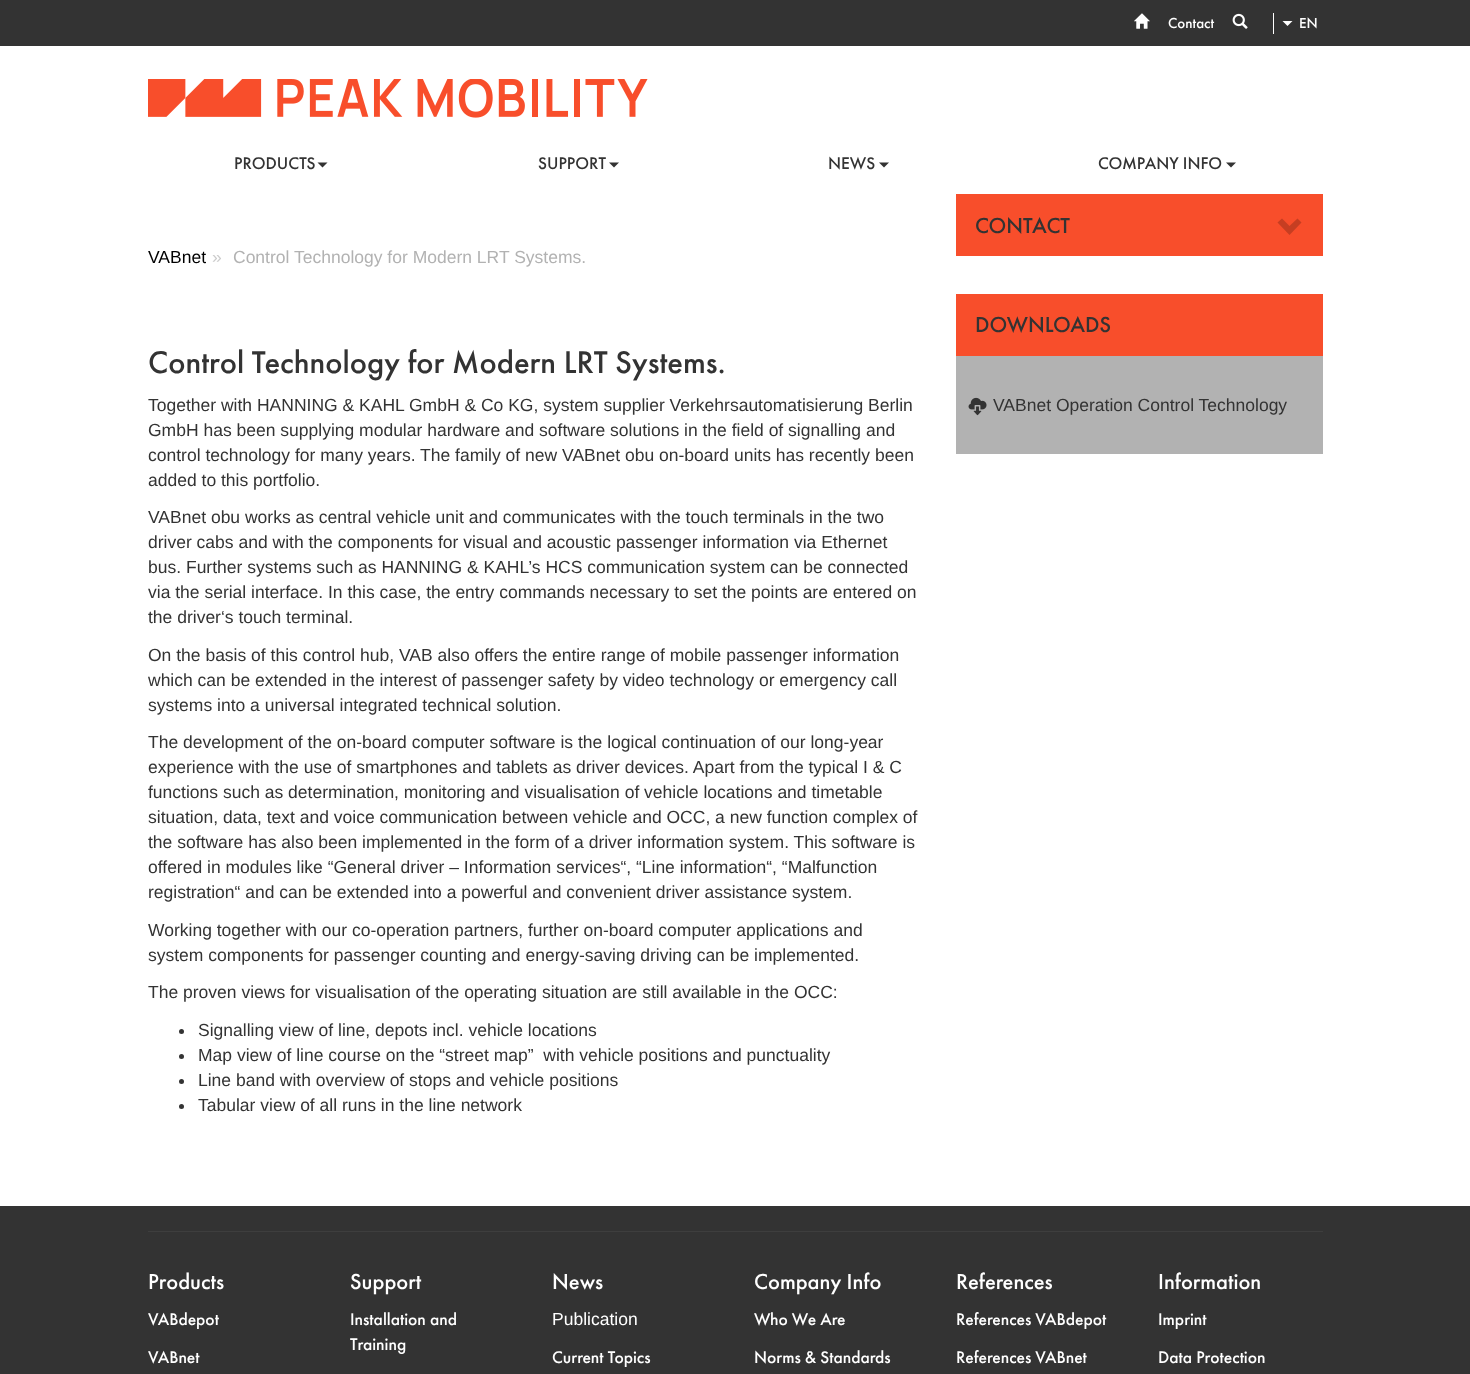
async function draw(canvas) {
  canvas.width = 1470;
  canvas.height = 1374;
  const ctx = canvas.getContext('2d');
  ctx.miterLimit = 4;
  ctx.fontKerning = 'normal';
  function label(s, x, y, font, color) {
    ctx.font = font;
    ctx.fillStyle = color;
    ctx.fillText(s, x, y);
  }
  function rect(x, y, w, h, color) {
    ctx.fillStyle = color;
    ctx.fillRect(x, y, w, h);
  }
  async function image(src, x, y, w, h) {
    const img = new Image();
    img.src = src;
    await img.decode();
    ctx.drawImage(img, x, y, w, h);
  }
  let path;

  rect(0, 0, 1470, 1374, '#fff');
  rect(0, 0, 1470, 46, '#333');
  await image('assets/img1.png', 1134, 13, 16, 16);
  label('Contact', 1168, 28, '500 15px Futura PT', '#fff');
  await image('assets/img2.png', 1232, 13, 16, 16);
  rect(1273, 13, 1, 21, '#fff');
  path = new Path2D('M1282.5 21H1292.5L1287.5 26Z');
  ctx.fill(path);
  label('EN', 1299, 28, '500 15px Futura PT', '#fff');
  await image('assets/img3.png', 148, 79, 500, 39);
  label('PRODUCTS', 234, 169, '500 17.5px Futura PT', '#333');
  path = new Path2D('M317.5 162.5H327.5L322.5 167.5Z');
  ctx.fill(path);
  label('SUPPORT', 538, 169, '500 17.5px Futura PT', '#333');
  path = new Path2D('M609 162.5H619L614 167.5Z');
  ctx.fill(path);
  label('NEWS', 828, 169, '500 17.5px Futura PT', '#333');
  path = new Path2D('M879 162.5H889L884 167.5Z');
  ctx.fill(path);
  label('COMPANY INFO', 1098, 169, '500 17.5px Futura PT', '#333');
  path = new Path2D('M1226 162.5H1236L1231 167.5Z');
  ctx.fill(path);
  label('VABnet', 148, 263, '17.5px Liberation Sans', '#000');
  label('»', 212, 263, '17.5px Liberation Sans', '#ccc');
  label('Control Technology for Modern LRT Systems.', 233, 263, '17.5px Liberation Sans', '#b2b2b2');
  label('Control Technology for Modern LRT Systems.', 148, 373, '500 32.5px Futura PT', '#333');
  label('Together with HANNING & KAHL GmbH & Co KG, system supplier Verkehrsautomatisierung Berlin', 148, 411, '17.5px Liberation Sans', '#333');
  label('GmbH has been supplying modular hardware and software solutions in the field of signalling and', 148, 436, '17.5px Liberation Sans', '#333');
  label('control technology for many years. The family of new VABnet obu on-board units has recently been', 148, 461, '17.5px Liberation Sans', '#333');
  label('added to this portfolio.', 148, 486, '17.5px Liberation Sans', '#333');
  label('VABnet obu works as central vehicle unit and communicates with the touch terminals in the two', 148, 523, '17.5px Liberation Sans', '#333');
  label('driver cabs and with the components for visual and acoustic passenger information via Ethernet', 148, 548, '17.5px Liberation Sans', '#333');
  label('bus. Further systems such as HANNING & KAHL’s HCS communication system can be connected', 148, 573, '17.5px Liberation Sans', '#333');
  label('via the serial interface. In this case, the entry commands necessary to set the points are entered on', 148, 598, '17.5px Liberation Sans', '#333');
  label('the driver‘s touch terminal.', 148, 623, '17.5px Liberation Sans', '#333');
  label('On the basis of this control hub, VAB also offers the entire range of mobile passenger information', 148, 661, '17.5px Liberation Sans', '#333');
  label('which can be extended in the interest of passenger safety by video technology or emergency call', 148, 686, '17.5px Liberation Sans', '#333');
  label('systems into a universal integrated technical solution.', 148, 711, '17.5px Liberation Sans', '#333');
  label('The development of the on-board computer software is the logical continuation of our long-year', 148, 748, '17.5px Liberation Sans', '#333');
  label('experience with the use of smartphones and tablets as driver devices. Apart from the typical I & C', 148, 773, '17.5px Liberation Sans', '#333');
  label('functions such as determination, monitoring and visualisation of vehicle locations and timetable', 148, 798, '17.5px Liberation Sans', '#333');
  label('situation, data, text and voice communication between vehicle and OCC, a new function complex of', 148, 823, '17.5px Liberation Sans', '#333');
  label('the software has also been implemented in the form of a driver information system. This software is', 148, 848, '17.5px Liberation Sans', '#333');
  label('offered in modules like “General driver – Information services“, “Line information“, “Malfunction', 148, 873, '17.5px Liberation Sans', '#333');
  label('registration“ and can be extended into a powerful and convenient driver assistance system.', 148, 898, '17.5px Liberation Sans', '#333');
  label('Working together with our co-operation partners, further on-board computer applications and', 148, 936, '17.5px Liberation Sans', '#333');
  label('system components for passenger counting and energy-saving driving can be implemented.', 148, 961, '17.5px Liberation Sans', '#333');
  label('The proven views for visualisation of the operating situation are still available in the OCC:', 148, 998, '17.5px Liberation Sans', '#333');
  ctx.beginPath();
  ctx.arc(181.5, 1031.5, 2.5, 0, 2 * Math.PI);
  ctx.fill();
  label('Signalling view of line, depots incl. vehicle locations', 198, 1036, '17.5px Liberation Sans', '#333');
  ctx.beginPath();
  ctx.arc(181.5, 1056.5, 2.5, 0, 2 * Math.PI);
  ctx.fill();
  label('Map view of line course on the “street map”  with vehicle positions and punctuality', 198, 1061, '17.5px Liberation Sans', '#333');
  ctx.beginPath();
  ctx.arc(181.5, 1081.5, 2.5, 0, 2 * Math.PI);
  ctx.fill();
  label('Line band with overview of stops and vehicle positions', 198, 1086, '17.5px Liberation Sans', '#333');
  ctx.beginPath();
  ctx.arc(181.5, 1106.5, 2.5, 0, 2 * Math.PI);
  ctx.fill();
  label('Tabular view of all runs in the line network', 198, 1111, '17.5px Liberation Sans', '#333');
  rect(956, 194, 367, 62, '#f84e2b');
  label('CONTACT', 975, 233, '500 22.5px Futura PT', '#333');
  ctx.fillStyle = '#c63e22';
  path = new Path2D('M1301.5 222.5L1289.5 235L1277.5 222.5L1282 218.5L1289.5 226L1297.5 218.5Z');
  ctx.fill(path);
  rect(956, 356, 367, 98, '#b2b2b2');
  rect(956, 294, 367, 62, '#f84e2b');
  label('DOWNLOADS', 975, 332, '500 22.5px Futura PT', '#333');
  await image('assets/img4.png', 968, 397, 19, 19);
  label('VABnet Operation Control Technology', 993, 411, '17.5px Liberation Sans', '#333');
  rect(0, 1206, 1470, 168, '#333');
  rect(148, 1231, 1175, 1, '#3e3e3e');
  label('Products', 148, 1289, '500 22.5px Futura PT', '#fff');
  label('VABdepot', 148, 1325, '500 17.5px Futura PT', '#fff');
  label('VABnet', 148, 1363, '500 17.5px Futura PT', '#fff');
  label('Support', 350, 1289, '500 22.5px Futura PT', '#fff');
  label('Installation and', 350, 1325, '500 17.5px Futura PT', '#fff');
  label('Training', 350, 1350, '500 17.5px Futura PT', '#fff');
  label('News', 552, 1289, '500 22.5px Futura PT', '#fff');
  label('Publication', 552, 1325, '17.5px Liberation Sans', '#fff');
  label('Current Topics', 552, 1363, '500 17.5px Futura PT', '#fff');
  label('Company Info', 754, 1289, '500 22.5px Futura PT', '#fff');
  label('Who We Are', 754, 1325, '500 17.5px Futura PT', '#fff');
  label('Norms & Standards', 754, 1363, '500 17.5px Futura PT', '#fff');
  label('References', 956, 1289, '500 22.5px Futura PT', '#fff');
  label('References VABdepot', 956, 1325, '500 17.5px Futura PT', '#fff');
  label('References VABnet', 956, 1363, '500 17.5px Futura PT', '#fff');
  label('Information', 1158, 1289, '500 22.5px Futura PT', '#fff');
  label('Imprint', 1158, 1325, '500 17.5px Futura PT', '#fff');
  label('Data Protection', 1158, 1363, '500 17.5px Futura PT', '#fff');
}

draw(document.querySelector('canvas'));
